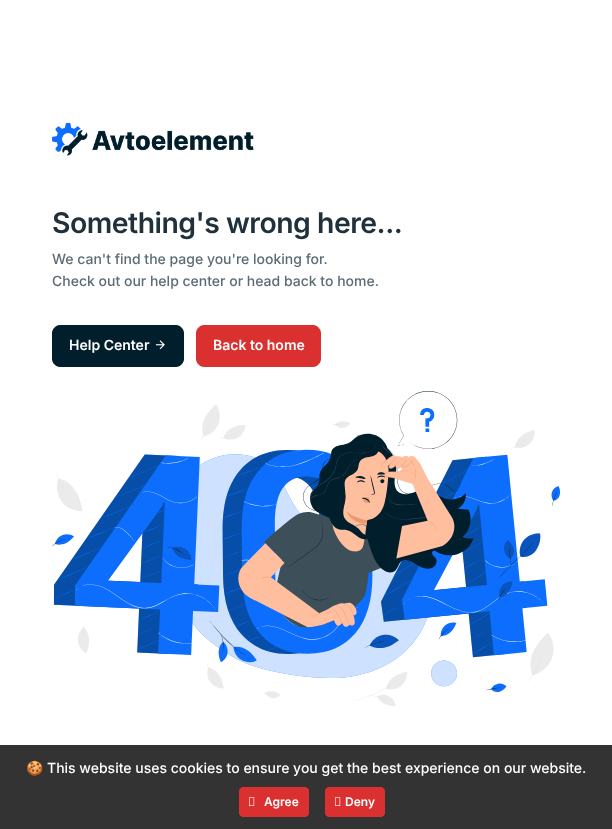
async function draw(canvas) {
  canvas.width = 612;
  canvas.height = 829;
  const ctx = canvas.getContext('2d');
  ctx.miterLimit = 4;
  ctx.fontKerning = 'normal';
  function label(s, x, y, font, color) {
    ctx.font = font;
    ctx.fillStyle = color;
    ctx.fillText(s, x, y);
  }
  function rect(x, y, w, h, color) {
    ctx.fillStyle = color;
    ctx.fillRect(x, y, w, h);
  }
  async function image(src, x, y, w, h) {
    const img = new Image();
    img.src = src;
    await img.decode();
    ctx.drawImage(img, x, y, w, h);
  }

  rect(0, 0, 612, 829, '#fff');
  await image('assets/img1.png', 52, 123, 202, 33);
  ctx.letterSpacing = '-0.5px';
  label('Something\'s wrong here...', 52, 233, '600 28.4px Inter', '#21313c');
  ctx.letterSpacing = '0px';
  label('We can\'t find the page you\'re looking for.', 52, 264, '500 14px Inter', '#5c6c75');
  label('Check out our help center or head back to home.', 52, 286, '500 14px Inter', '#5c6c75');
  ctx.fillStyle = '#001e2b';
  ctx.beginPath();
  ctx.roundRect(52.5, 325.5, 131, 41, 7.5);
  ctx.fill();
  ctx.strokeStyle = '#001e2b';
  ctx.stroke();
  label('Help Center', 69, 350, '600 14px Inter', '#fff');
  await image('assets/img2.png', 155, 340, 10, 10);
  ctx.fillStyle = '#db3030';
  ctx.beginPath();
  ctx.roundRect(196.5, 325.5, 124, 41, 7.5);
  ctx.fill();
  ctx.strokeStyle = '#db3030';
  ctx.stroke();
  label('Back to home', 213, 350, '600 14px Inter', '#fff');
  await image('assets/img3.png', 52, 391, 508, 315);
  rect(0, 745, 612, 84, '#333');
  label('🍪', 26, 773, '14px Noto Color Emoji', '#fff');
  label('This website uses cookies to ensure you get the best experience on our website.', 47, 773, '500 14px Inter', '#fff');
  ctx.fillStyle = '#db3030';
  ctx.beginPath();
  ctx.roundRect(239.5, 787.5, 69, 29, 3.5);
  ctx.fill();
  ctx.stroke();
  await image('assets/img4.png', 249, 797, 6, 9);
  label('Agree', 264, 806, '600 12px Inter', '#fff');
  ctx.fillStyle = '#db3030';
  ctx.beginPath();
  ctx.roundRect(325.5, 787.5, 59, 29, 3.5);
  ctx.fill();
  ctx.stroke();
  await image('assets/img4.png', 335, 797, 6, 9);
  label('Deny', 345, 806, '600 12px Inter', '#fff');
}

draw(document.querySelector('canvas'));
